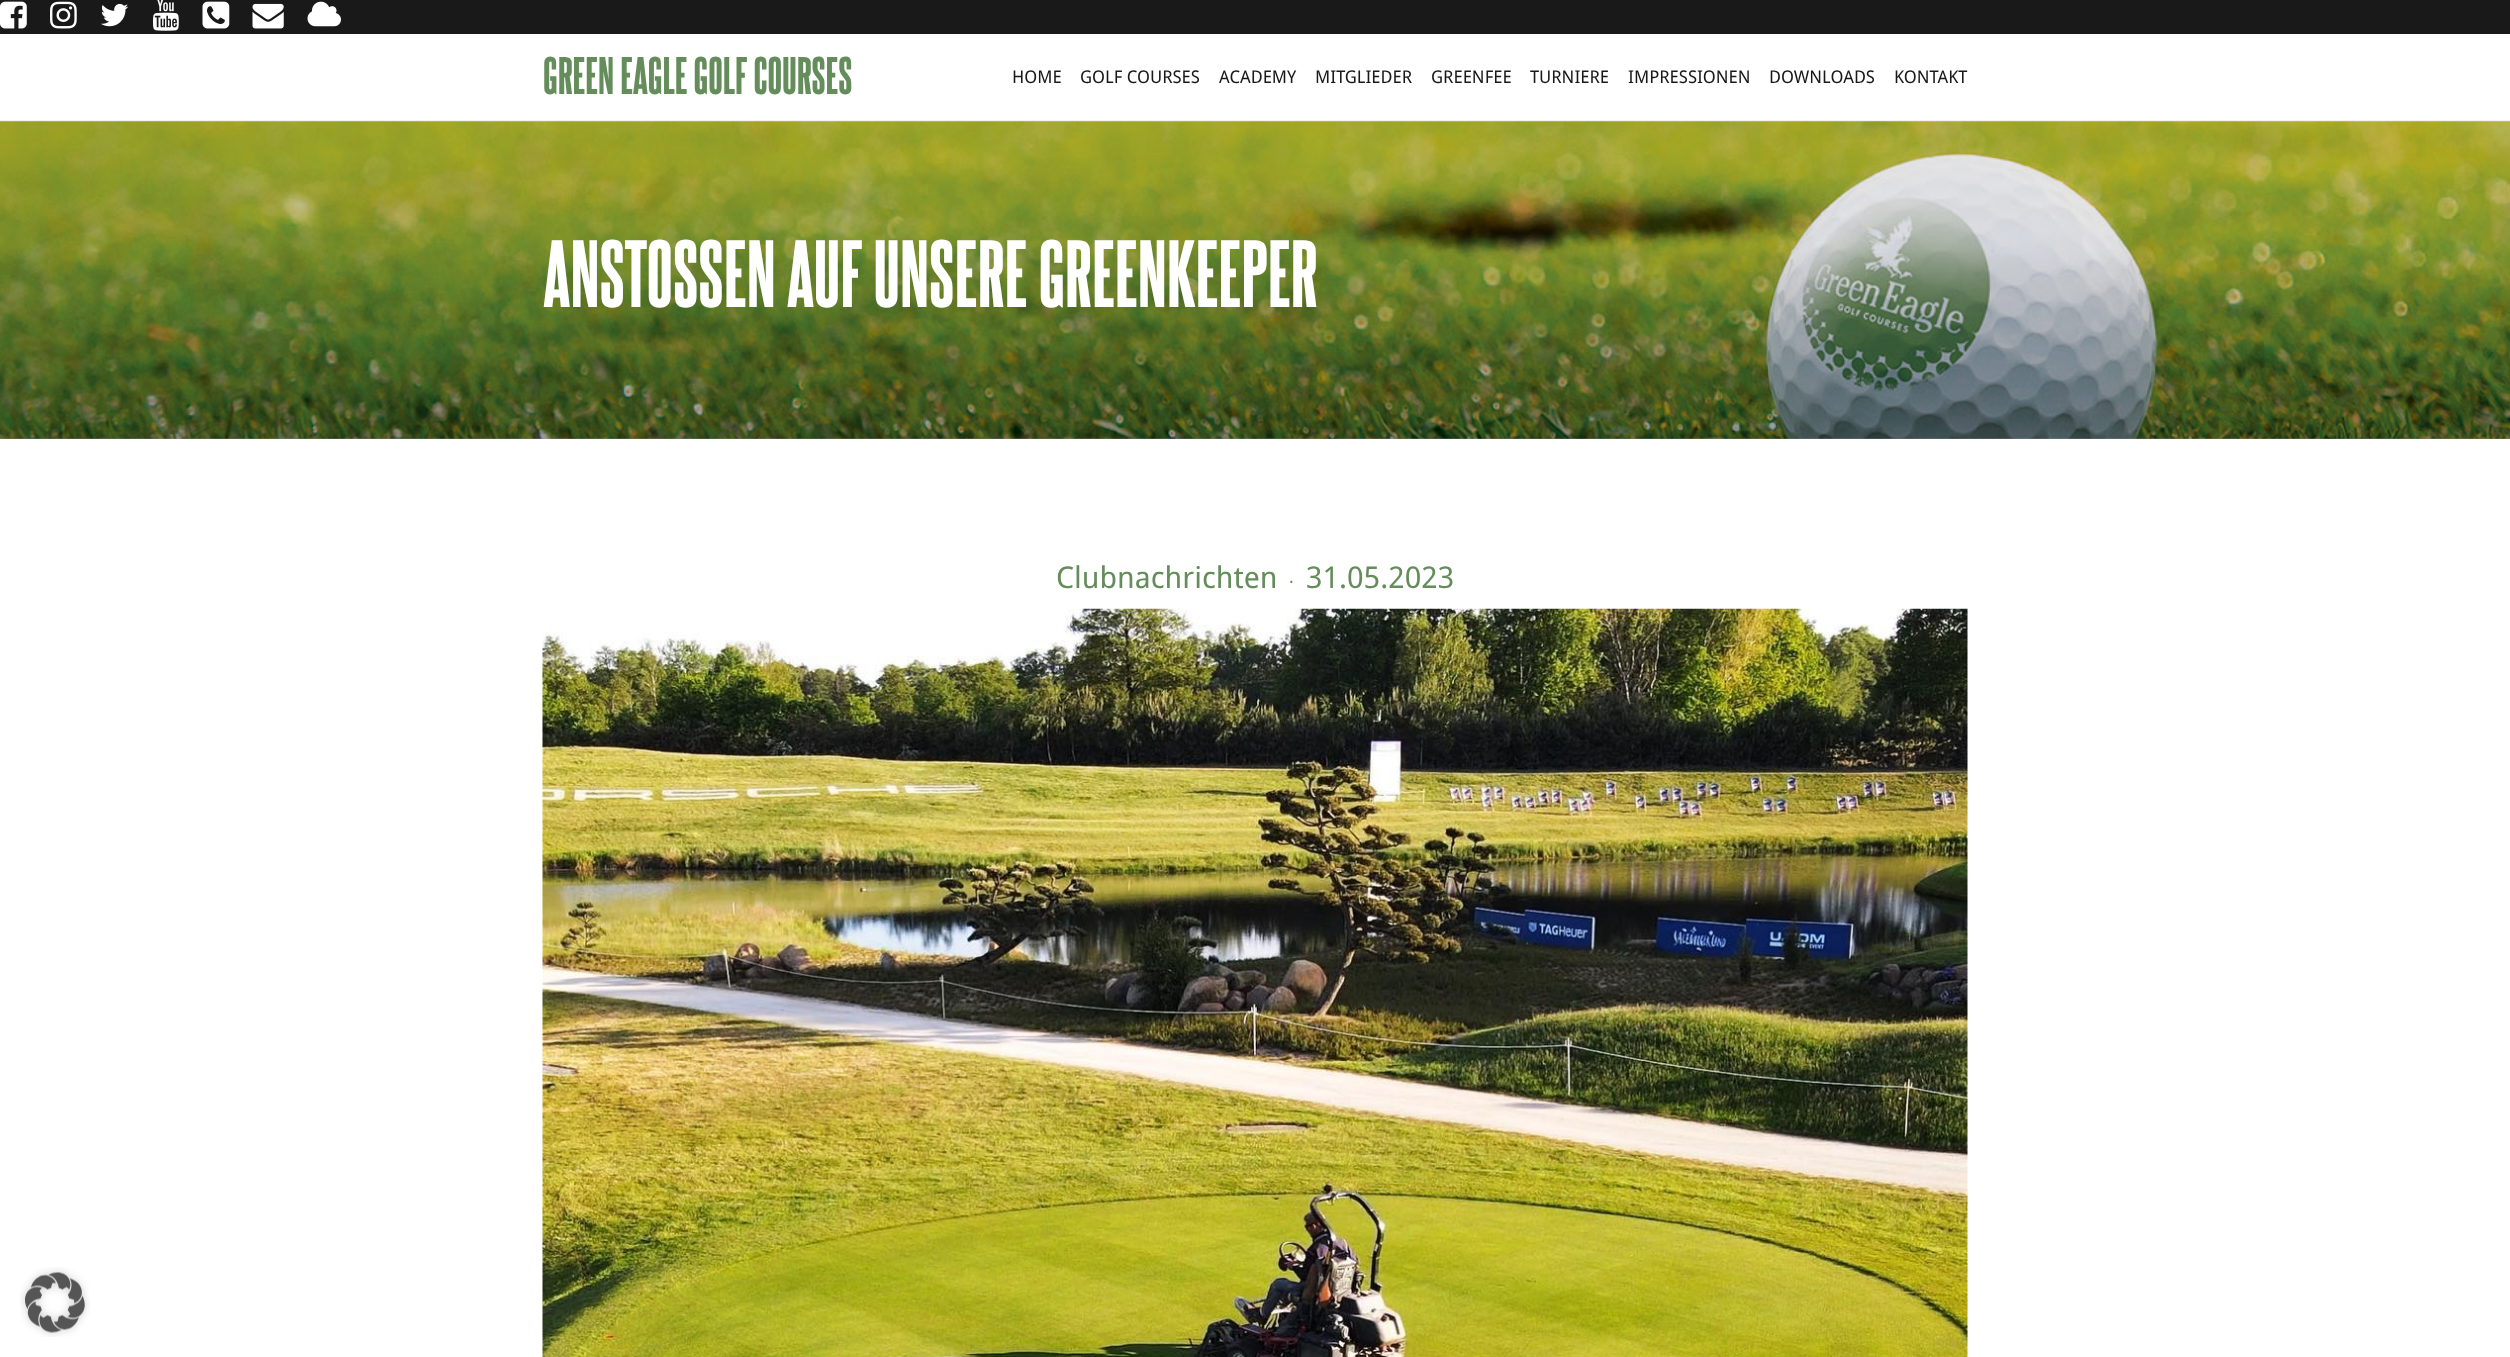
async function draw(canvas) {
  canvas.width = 2510;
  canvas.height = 1357;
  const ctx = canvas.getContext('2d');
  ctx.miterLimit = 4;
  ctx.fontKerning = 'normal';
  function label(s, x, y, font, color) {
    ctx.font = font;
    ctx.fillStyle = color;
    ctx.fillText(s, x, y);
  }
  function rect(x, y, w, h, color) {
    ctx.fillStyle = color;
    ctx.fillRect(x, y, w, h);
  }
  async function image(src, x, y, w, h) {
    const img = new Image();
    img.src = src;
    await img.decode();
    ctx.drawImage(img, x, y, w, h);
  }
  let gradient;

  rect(0, 0, 2510, 1357, '#fff');
  rect(0, 0, 2510, 34, '#191919');
  await image('assets/img1.png', 0, 1, 27, 28);
  await image('assets/img2.png', 50, 1, 27, 28);
  await image('assets/img3.png', 101, 3, 28, 24);
  await image('assets/img4.png', 153, 0, 26, 31);
  await image('assets/img5.png', 202, 1, 28, 28);
  await image('assets/img6.png', 252, 3, 32, 26);
  await image('assets/img7.png', 307, 1, 34, 26);
  rect(0, 120, 2510, 1, '#f2f2f2');
  label('GREEN EAGLE GOLF COURSES', 543, 94, '800 45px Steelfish', '#658d5b');
  label('HOME', 1012, 83, '17.5px Droid Sans', '#191919');
  label('GOLF COURSES', 1080, 83, '17.5px Droid Sans', '#191919');
  label('ACADEMY', 1219, 83, '17.5px Droid Sans', '#191919');
  label('MITGLIEDER', 1315, 83, '17.5px Droid Sans', '#191919');
  label('GREENFEE', 1431, 83, '17.5px Droid Sans', '#191919');
  label('TURNIERE', 1530, 83, '17.5px Droid Sans', '#191919');
  label('IMPRESSIONEN', 1628, 83, '17.5px Droid Sans', '#191919');
  label('DOWNLOADS', 1769, 83, '17.5px Droid Sans', '#191919');
  label('KONTAKT', 1894, 83, '17.5px Droid Sans', '#191919');
  await image('assets/img8.png', 0, 121, 2510, 318);
  gradient = ctx.createLinearGradient(1255, 121, 1255, 439);
  gradient.addColorStop(0, '#0000001a');
  gradient.addColorStop(0.4, '#0000001a');
  gradient.addColorStop(1, '#00000066');
  ctx.fillStyle = gradient;
  ctx.fillRect(0, 121, 2510, 318);
  label('ANSTOSSEN AUF UNSERE GREENKEEPER', 543, 307, '800 81.25px Steelfish', '#fff');
  label('Clubnachrichten', 1056, 588, '30px Droid Sans', '#658d5b');
  label('·', 1289, 588, '17.5px Droid Sans', '#658d5b');
  label('31.05.2023', 1306, 588, '30px Droid Sans', '#658d5b');
  await image('assets/img9.png', 542, 608, 1426, 749);
  await image('assets/img10.png', 20, 1267, 70, 70);
}

draw(document.querySelector('canvas'));
